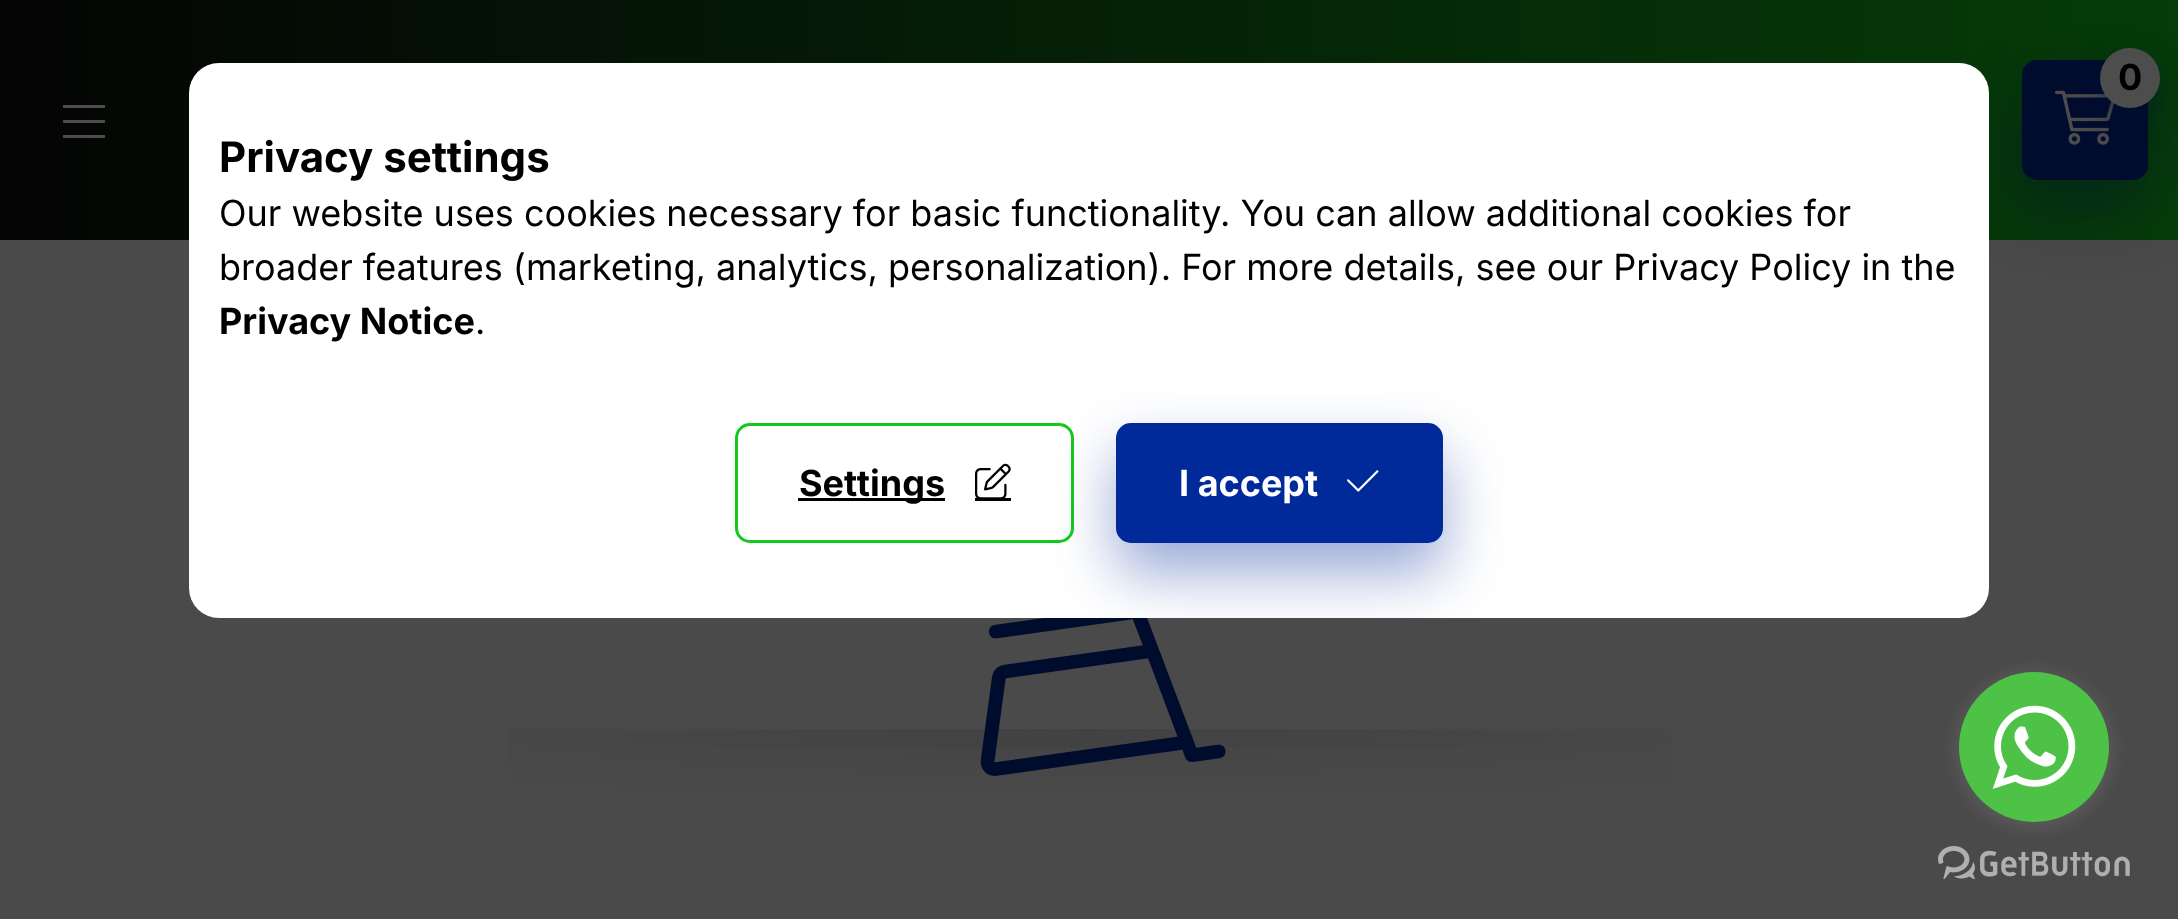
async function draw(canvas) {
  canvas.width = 2178;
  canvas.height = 919;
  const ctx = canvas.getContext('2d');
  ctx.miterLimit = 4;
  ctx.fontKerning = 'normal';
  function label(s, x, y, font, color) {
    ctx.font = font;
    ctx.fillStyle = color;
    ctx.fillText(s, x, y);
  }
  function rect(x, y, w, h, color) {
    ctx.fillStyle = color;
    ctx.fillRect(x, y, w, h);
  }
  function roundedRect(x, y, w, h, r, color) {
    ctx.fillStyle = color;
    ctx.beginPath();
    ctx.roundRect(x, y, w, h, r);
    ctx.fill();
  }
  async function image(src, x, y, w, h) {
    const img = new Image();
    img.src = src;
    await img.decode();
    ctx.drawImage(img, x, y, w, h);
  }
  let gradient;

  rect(0, 0, 2178, 919, '#4a4a4a');
  gradient = ctx.createLinearGradient(0, 461, 2178, 460);
  gradient.addColorStop(0, '#040404');
  gradient.addColorStop(1, '#063c09');
  ctx.fillStyle = gradient;
  ctx.fillRect(0, 0, 2178, 240);
  ctx.fillStyle = '#000c2e66';
  ctx.filter = 'blur(30px)';
  ctx.beginPath();
  ctx.roundRect(2022, 90, 126, 120, 15);
  ctx.fill();
  ctx.filter = 'none';
  roundedRect(2022, 60, 126, 120, 15, '#000c2e');
  await image('assets/img1.png', 2055, 90, 60, 55);
  ctx.fillStyle = '#000c2e66';
  ctx.filter = 'blur(15px)';
  ctx.beginPath();
  ctx.roundRect(2100, 63, 60, 60, 30);
  ctx.fill();
  ctx.filter = 'none';
  ctx.fillStyle = '#4d4d4d';
  ctx.beginPath();
  ctx.arc(2130, 78, 30, 0, 2 * Math.PI);
  ctx.fill();
  label('0', 2118, 90, 'bold 36px Inter', '#000');
  rect(63, 105, 42, 3, '#4d4d4d');
  rect(63, 120, 42, 3, '#4d4d4d');
  rect(63, 135, 42, 3, '#4d4d4d');
  gradient = ctx.createLinearGradient(30, 762, 2148, 762);
  gradient.addColorStop(0.1, '#4a4a4a');
  gradient.addColorStop(0.5, '#424242');
  gradient.addColorStop(0.9, '#4a4a4a');
  ctx.fillStyle = gradient;
  ctx.fillRect(507, 729, 1164, 66);
  gradient = ctx.createLinearGradient(1089, 795, 1089, 729);
  gradient.addColorStop(0, '#4a4a4a');
  gradient.addColorStop(1, '#4a4a4a00');
  ctx.fillStyle = gradient;
  ctx.fillRect(507, 747, 1164, 48);
  await image('assets/img2.png', 980, 618, 246, 158);
  roundedRect(189, 63, 1800, 555, 30, '#fff');
  label('Privacy settings', 219, 172, 'bold 42px Inter', '#000');
  label('Our website uses cookies necessary for basic functionality. You can allow additional cookies for', 219, 226, '36px Inter', '#000');
  label('broader features (marketing, analytics, personalization). For more details, see our Privacy Policy in the', 219, 280, '36px Inter', '#000');
  label('Privacy Notice', 219, 334, 'bold 36px Inter', '#000');
  label('.', 475, 334, '36px Inter', '#000');
  ctx.beginPath();
  ctx.roundRect(736.5, 424.5, 336, 117, 13.5);
  ctx.strokeStyle = '#14c91d';
  ctx.lineWidth = 3;
  ctx.stroke();
  rect(798, 498, 147, 3, '#000');
  label('Settings', 799, 496, 'bold 36px Inter', '#000');
  await image('assets/img3.png', 975, 463, 36, 35);
  rect(975, 498, 36, 3, '#000');
  ctx.save();
  ctx.beginPath();
  ctx.roundRect(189, 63, 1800, 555, 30);
  ctx.clip();
  ctx.fillStyle = '#00299966';
  ctx.filter = 'blur(30px)';
  ctx.beginPath();
  ctx.roundRect(1116, 453, 327, 120, 15);
  ctx.fill();
  ctx.filter = 'none';
  ctx.restore();
  ctx.fillStyle = '#002999';
  ctx.beginPath();
  ctx.roundRect(1117.5, 424.5, 324, 117, 13.5);
  ctx.fill();
  ctx.strokeStyle = '#002999';
  ctx.stroke();
  label('I accept', 1179, 496, 'bold 36px Inter', '#fff');
  await image('assets/img4.png', 1347, 470, 32, 22);
  await image('assets/img6.png', 1938, 846, 192, 33);
  ctx.fillStyle = '#88888866';
  ctx.filter = 'blur(10.5px)';
  ctx.beginPath();
  ctx.roundRect(1959, 675, 150, 150, 75);
  ctx.fill();
  ctx.filter = 'none';
  ctx.fillStyle = '#4dc247';
  ctx.beginPath();
  ctx.arc(2034, 747, 75, 0, 2 * Math.PI);
  ctx.fill();
  await image('assets/img5.png', 1992, 705, 84, 84);
}

draw(document.querySelector('canvas'));
